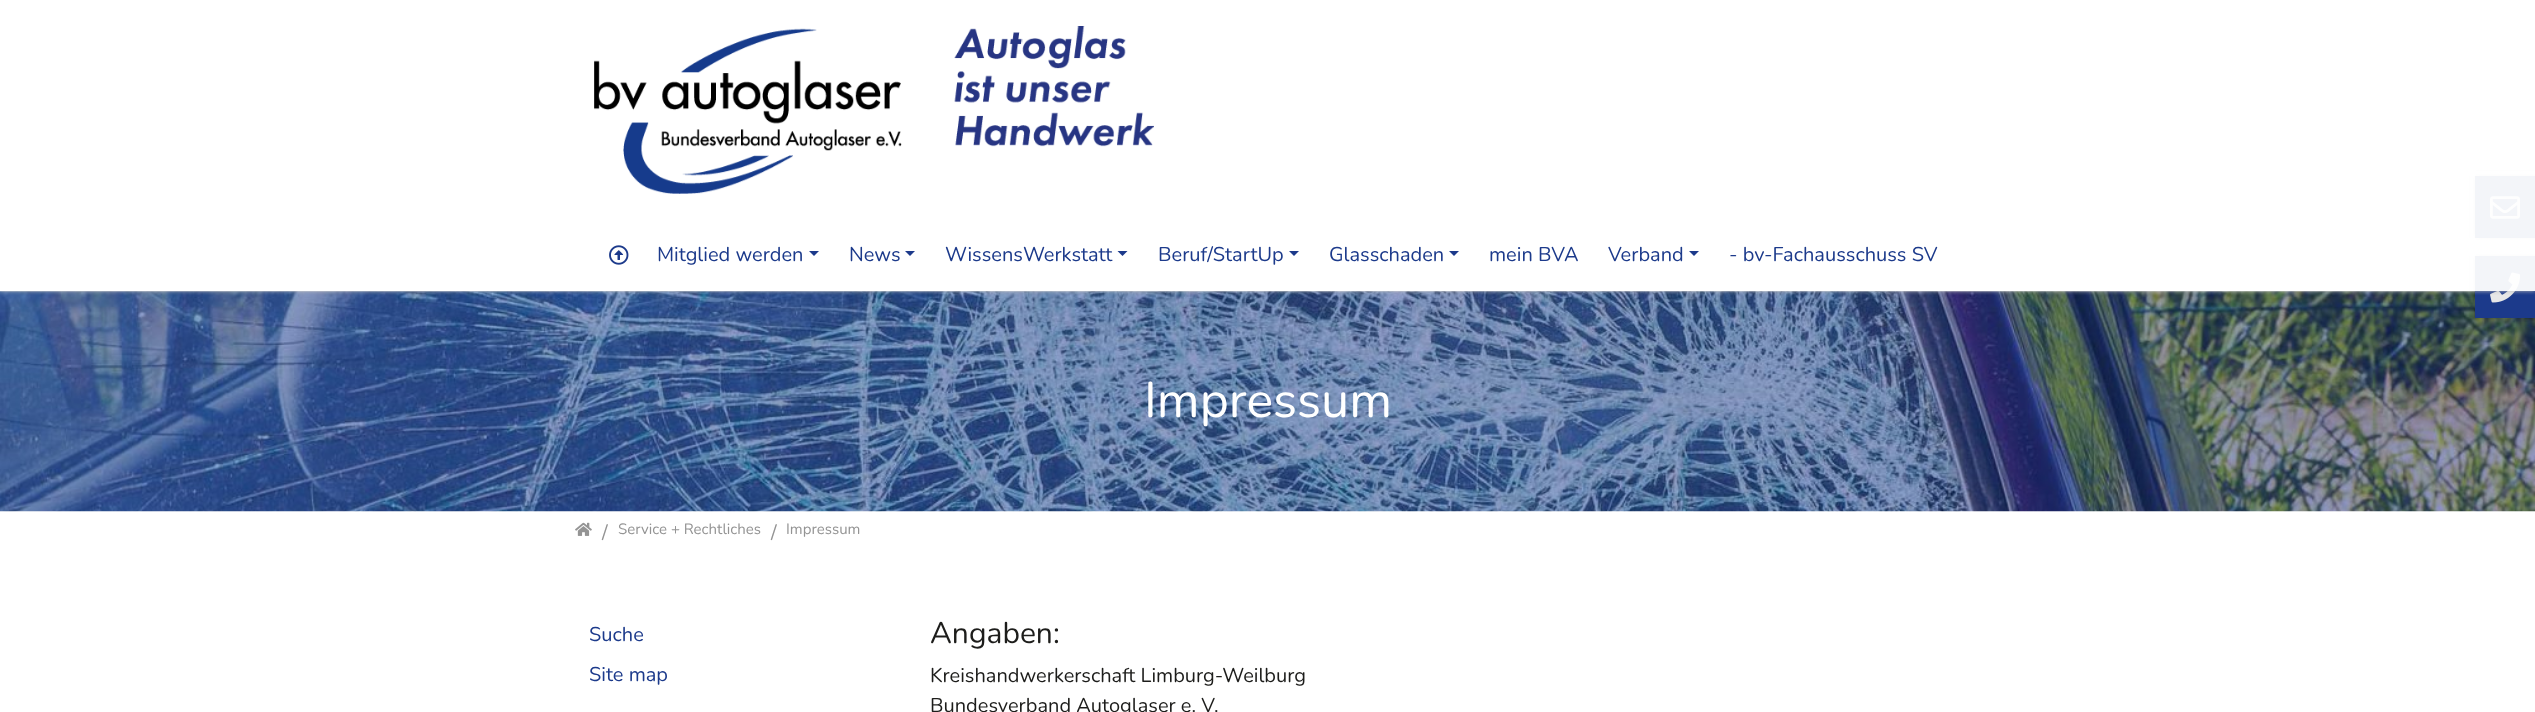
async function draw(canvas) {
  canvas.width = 2535;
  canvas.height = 712;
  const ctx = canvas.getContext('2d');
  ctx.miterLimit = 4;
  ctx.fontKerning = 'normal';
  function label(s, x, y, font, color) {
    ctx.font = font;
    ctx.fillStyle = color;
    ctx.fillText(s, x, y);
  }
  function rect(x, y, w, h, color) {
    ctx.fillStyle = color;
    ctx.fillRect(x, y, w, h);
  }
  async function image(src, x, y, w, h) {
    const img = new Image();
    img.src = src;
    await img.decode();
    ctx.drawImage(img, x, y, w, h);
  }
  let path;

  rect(0, 0, 2535, 712, '#fff');
  await image('assets/img3.png', 0, 291, 2535, 221);
  ctx.fillStyle = '#00000057';
  ctx.filter = 'blur(2.5px)';
  ctx.beginPath();
  ctx.rect(2475, 176, 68, 62);
  ctx.fill();
  ctx.filter = 'none';
  rect(2475, 176, 60, 62, '#1c3a8b');
  await image('assets/img5.png', 2490, 196, 30, 23);
  ctx.fillStyle = '#00000057';
  ctx.filter = 'blur(2.5px)';
  ctx.beginPath();
  ctx.rect(2475, 256, 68, 62);
  ctx.fill();
  ctx.filter = 'none';
  rect(2475, 256, 60, 62, '#1c3a8b');
  await image('assets/img6.png', 2490, 272, 31, 31);
  ctx.save();
  ctx.beginPath();
  ctx.rect(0, 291, 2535, 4);
  ctx.clip();
  ctx.fillStyle = '#bbb';
  ctx.filter = 'blur(2px)';
  ctx.beginPath();
  ctx.rect(0, 0, 2535, 291);
  ctx.fill();
  ctx.filter = 'none';
  ctx.restore();
  rect(2470, 171, 65, 120, '#fffffff2');
  await image('assets/img1.png', 594, 26, 560, 168);
  await image('assets/img2.png', 609, 245, 20, 20);
  label('Mitglied werden', 657, 261, '20px Nunito', '#1c3a8b');
  path = new Path2D('M809 251H819L814 256Z');
  ctx.fill(path);
  label('News', 849, 261, '20px Nunito', '#1c3a8b');
  path = new Path2D('M905 251H915L910 256Z');
  ctx.fill(path);
  label('WissensWerkstatt', 945, 261, '20px Nunito', '#1c3a8b');
  path = new Path2D('M1117.5 251H1127.5L1122.5 256Z');
  ctx.fill(path);
  label('Beruf/StartUp', 1158, 261, '20px Nunito', '#1c3a8b');
  path = new Path2D('M1289 251H1299L1294 256Z');
  ctx.fill(path);
  label('Glasschaden', 1329, 261, '20px Nunito', '#1c3a8b');
  path = new Path2D('M1449 251H1459L1454 256Z');
  ctx.fill(path);
  label('mein BVA', 1489, 261, '20px Nunito', '#1c3a8b');
  label('Verband', 1608, 261, '20px Nunito', '#1c3a8b');
  path = new Path2D('M1689 251H1699L1694 256Z');
  ctx.fill(path);
  label('- bv-Fachausschuss SV', 1729, 261, '20px Nunito', '#1c3a8b');
  label('Impressum', 1144, 417, '50px Nunito', '#fff');
  await image('assets/img4.png', 575, 522, 17, 14);
  label('/', 602, 539, '20px Nunito', '#949494');
  label('Service + Rechtliches', 618, 534, '15px Nunito', '#949494');
  label('/', 771, 539, '20px Nunito', '#949494');
  label('Impressum', 786, 534, '15px Nunito', '#949494');
  label('Suche', 589, 641, '20px Nunito', '#1c3a8b');
  label('Site map', 589, 681, '20px Nunito', '#1c3a8b');
  label('Angaben:', 930, 643, '30px Nunito', '#1d1d1b');
  label('Kreishandwerkerschaft Limburg-Weilburg', 930, 682, '20px Nunito', '#1d1d1b');
  label('Bundesverband Autoglaser e. V.', 930, 712, '20px Nunito', '#1d1d1b');
}

draw(document.querySelector('canvas'));
